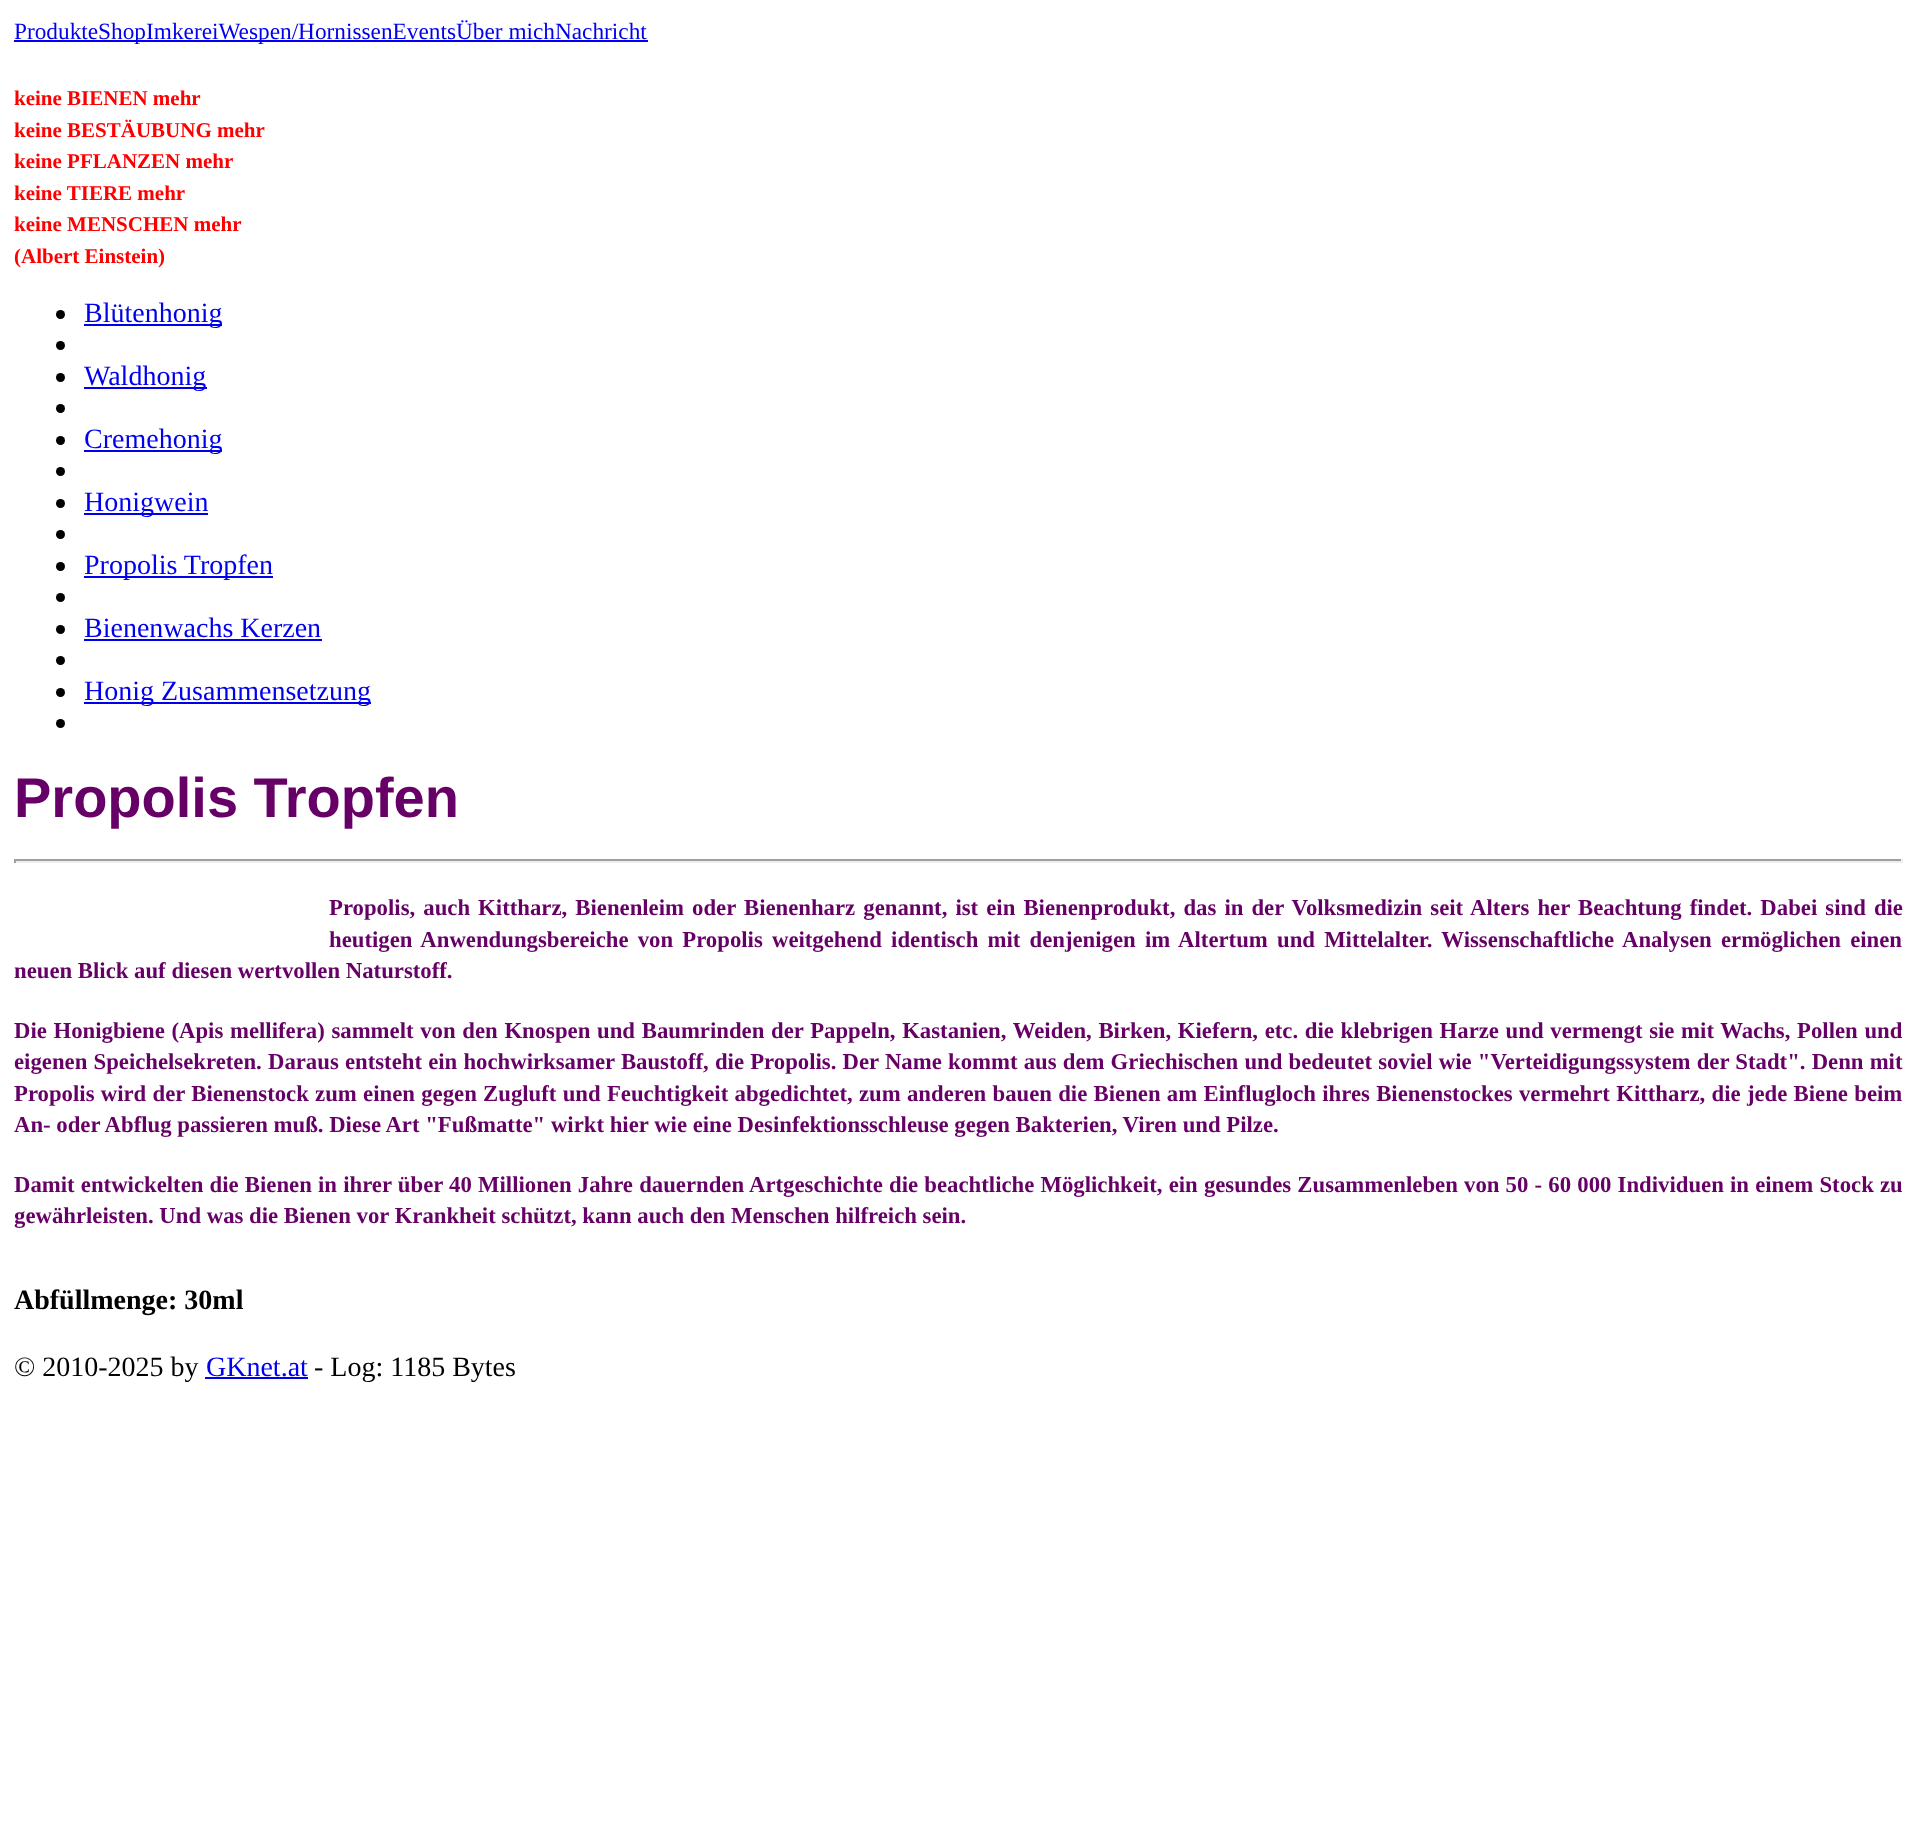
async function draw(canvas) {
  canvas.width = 1915;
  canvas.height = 1846;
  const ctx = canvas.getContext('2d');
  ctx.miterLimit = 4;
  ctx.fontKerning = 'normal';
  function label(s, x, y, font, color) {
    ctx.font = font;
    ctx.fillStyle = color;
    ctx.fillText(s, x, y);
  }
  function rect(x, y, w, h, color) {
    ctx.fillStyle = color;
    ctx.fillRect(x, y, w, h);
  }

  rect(0, 0, 1915, 1846, '#fff');
  rect(14, 40, 634, 2, '#00e');
  label('ProdukteShopImkereiWespen/HornissenEventsÜber michNachricht', 14, 39, '23.3px Liberation Serif', '#00e');
  label('keine BIENEN mehr', 14, 105, 'bold 21px Liberation Serif', '#f00');
  label('keine BESTÄUBUNG mehr', 14, 137, 'bold 21px Liberation Serif', '#f00');
  label('keine PFLANZEN mehr', 14, 168, 'bold 21px Liberation Serif', '#f00');
  label('keine TIERE mehr', 14, 200, 'bold 21px Liberation Serif', '#f00');
  label('keine MENSCHEN mehr', 14, 231, 'bold 21px Liberation Serif', '#f00');
  label('(Albert Einstein)', 14, 263, 'bold 21px Liberation Serif', '#f00');
  ctx.fillStyle = '#000';
  ctx.beginPath();
  ctx.arc(60.5, 314.5, 4.5, 0, 2 * Math.PI);
  ctx.fill();
  rect(84, 324, 138, 2, '#00e');
  label('Blütenhonig', 84, 322, '28px Liberation Serif', '#00e');
  ctx.fillStyle = '#000';
  ctx.beginPath();
  ctx.arc(60.5, 345.5, 4.5, 0, 2 * Math.PI);
  ctx.fill();
  ctx.beginPath();
  ctx.arc(60.5, 377.5, 4.5, 0, 2 * Math.PI);
  ctx.fill();
  rect(84, 387, 123, 2, '#00e');
  label('Waldhonig', 84, 385, '28px Liberation Serif', '#00e');
  ctx.fillStyle = '#000';
  ctx.beginPath();
  ctx.arc(60.5, 408.5, 4.5, 0, 2 * Math.PI);
  ctx.fill();
  ctx.beginPath();
  ctx.arc(60.5, 440.5, 4.5, 0, 2 * Math.PI);
  ctx.fill();
  rect(84, 450, 138, 2, '#00e');
  label('Cremehonig', 84, 448, '28px Liberation Serif', '#00e');
  ctx.fillStyle = '#000';
  ctx.beginPath();
  ctx.arc(60.5, 471.5, 4.5, 0, 2 * Math.PI);
  ctx.fill();
  ctx.beginPath();
  ctx.arc(60.5, 503.5, 4.5, 0, 2 * Math.PI);
  ctx.fill();
  rect(84, 513, 124, 2, '#00e');
  label('Honigwein', 84, 511, '28px Liberation Serif', '#00e');
  ctx.fillStyle = '#000';
  ctx.beginPath();
  ctx.arc(60.5, 534.5, 4.5, 0, 2 * Math.PI);
  ctx.fill();
  ctx.beginPath();
  ctx.arc(60.5, 566.5, 4.5, 0, 2 * Math.PI);
  ctx.fill();
  rect(84, 576, 189, 2, '#00e');
  label('Propolis Tropfen', 84, 574, '28px Liberation Serif', '#00e');
  ctx.fillStyle = '#000';
  ctx.beginPath();
  ctx.arc(60.5, 597.5, 4.5, 0, 2 * Math.PI);
  ctx.fill();
  ctx.beginPath();
  ctx.arc(60.5, 629.5, 4.5, 0, 2 * Math.PI);
  ctx.fill();
  label('Bienenwachs Kerzen', 84, 637, '28px Liberation Serif', '#00e');
  rect(84, 639, 238, 2, '#00e');
  ctx.fillStyle = '#000';
  ctx.beginPath();
  ctx.arc(60.5, 660.5, 4.5, 0, 2 * Math.PI);
  ctx.fill();
  ctx.beginPath();
  ctx.arc(60.5, 692.5, 4.5, 0, 2 * Math.PI);
  ctx.fill();
  rect(84, 702, 287, 2, '#00e');
  label('Honig Zusammensetzung', 84, 700, '28px Liberation Serif', '#00e');
  ctx.fillStyle = '#000';
  ctx.beginPath();
  ctx.arc(60.5, 723.5, 4.5, 0, 2 * Math.PI);
  ctx.fill();
  label('Propolis Tropfen', 14, 817, 'bold 56px Liberation Sans', '#606');
  rect(14, 859, 1888, 2, '#9f9f9f');
  rect(1901, 859, 2, 4, '#eee');
  rect(14, 861, 1888, 2, '#eee');
  rect(14, 859, 2, 4, '#9f9f9f');
  ctx.wordSpacing = '2.4px';
  label('Propolis, auch Kittharz, Bienenleim oder Bienenharz genannt, ist ein Bienenprodukt, das in der Volksmedizin seit Alters her Beachtung findet. Dabei sind die', 329, 915, 'bold 22.75px Liberation Serif', '#606');
  ctx.wordSpacing = '3.5px';
  label('heutigen Anwendungsbereiche von Propolis weitgehend identisch mit denjenigen im Altertum und Mittelalter. Wissenschaftliche Analysen ermöglichen einen', 329, 947, 'bold 22.75px Liberation Serif', '#606');
  ctx.wordSpacing = '0px';
  label('neuen Blick auf diesen wertvollen Naturstoff.', 14, 978, 'bold 22.75px Liberation Serif', '#606');
  ctx.wordSpacing = '1px';
  label('Die Honigbiene (Apis mellifera) sammelt von den Knospen und Baumrinden der Pappeln, Kastanien, Weiden, Birken, Kiefern, etc. die klebrigen Harze und vermengt sie mit Wachs, Pollen und', 14, 1038, 'bold 22.75px Liberation Serif', '#606');
  ctx.wordSpacing = '0.5px';
  label('eigenen Speichelsekreten. Daraus entsteht ein hochwirksamer Baustoff, die Propolis. Der Name kommt aus dem Griechischen und bedeutet soviel wie "Verteidigungssystem der Stadt". Denn mit', 14, 1069, 'bold 22.75px Liberation Serif', '#606');
  ctx.wordSpacing = '0.6px';
  label('Propolis wird der Bienenstock zum einen gegen Zugluft und Feuchtigkeit abgedichtet, zum anderen bauen die Bienen am Einflugloch ihres Bienenstockes vermehrt Kittharz, die jede Biene beim', 14, 1101, 'bold 22.75px Liberation Serif', '#606');
  ctx.wordSpacing = '0px';
  label('An- oder Abflug passieren muß. Diese Art "Fußmatte" wirkt hier wie eine Desinfektionsschleuse gegen Bakterien, Viren und Pilze.', 14, 1132, 'bold 22.75px Liberation Serif', '#606');
  ctx.wordSpacing = '0.5px';
  label('Damit entwickelten die Bienen in ihrer über 40 Millionen Jahre dauernden Artgeschichte die beachtliche Möglichkeit, ein gesundes Zusammenleben von 50 - 60 000 Individuen in einem Stock zu', 14, 1192, 'bold 22.75px Liberation Serif', '#606');
  ctx.wordSpacing = '0px';
  label('gewährleisten. Und was die Bienen vor Krankheit schützt, kann auch den Menschen hilfreich sein.', 14, 1223, 'bold 22.75px Liberation Serif', '#606');
  label('Abfüllmenge: 30ml', 14, 1309, 'bold 28px Liberation Serif', '#000');
  label('© 2010-2025 by', 14, 1376, '28px Liberation Serif', '#000');
  label('GKnet.at', 206, 1376, '28px Liberation Serif', '#00e');
  rect(205, 1377, 103, 2, '#00e');
  label('- Log: 1185 Bytes', 314, 1376, '28px Liberation Serif', '#000');
}

draw(document.querySelector('canvas'));
